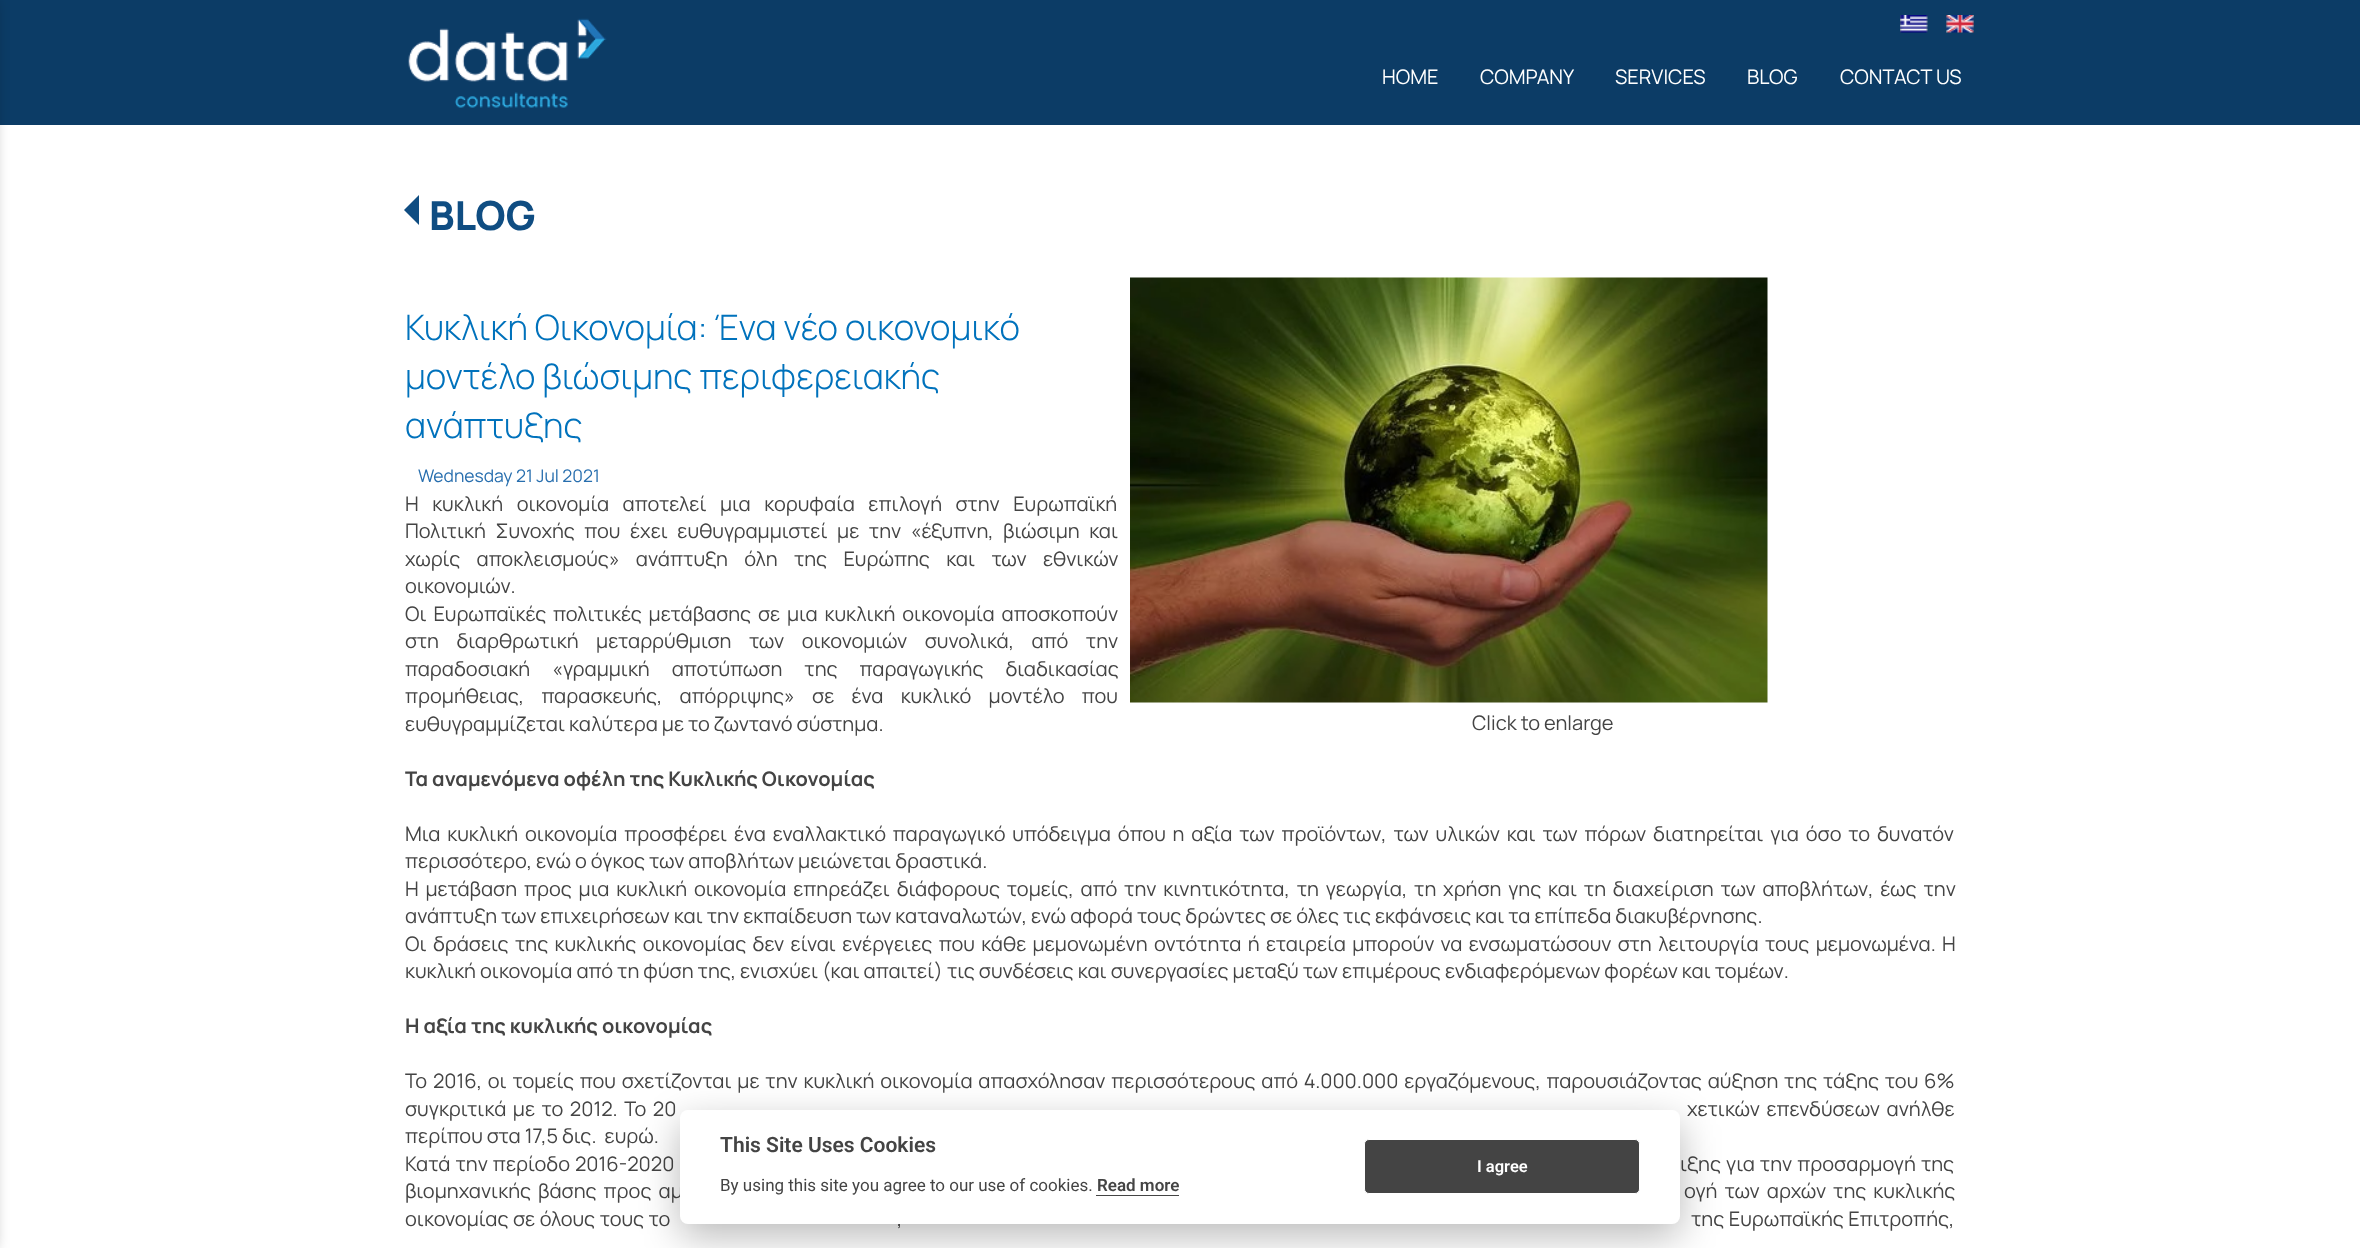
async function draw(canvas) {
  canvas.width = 2360;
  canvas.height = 1248;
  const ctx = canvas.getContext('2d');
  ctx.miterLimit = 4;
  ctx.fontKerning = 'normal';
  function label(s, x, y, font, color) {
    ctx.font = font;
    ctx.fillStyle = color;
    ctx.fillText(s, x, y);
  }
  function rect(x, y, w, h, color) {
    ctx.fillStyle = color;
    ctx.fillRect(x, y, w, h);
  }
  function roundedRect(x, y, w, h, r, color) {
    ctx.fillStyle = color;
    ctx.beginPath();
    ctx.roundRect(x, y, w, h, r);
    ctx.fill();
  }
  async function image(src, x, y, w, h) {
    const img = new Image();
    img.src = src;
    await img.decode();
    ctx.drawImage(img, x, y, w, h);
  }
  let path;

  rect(0, 0, 2360, 1248, '#fff');
  rect(0, 0, 2360, 125, '#0c3c66');
  ctx.fillStyle = '#00000066';
  ctx.filter = 'blur(7.5px)';
  ctx.beginPath();
  ctx.rect(-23, 0, 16, 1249);
  ctx.fill();
  ctx.filter = 'none';
  await image('assets/img1.png', 408, 18, 199, 90);
  await image('assets/img2.png', 1900, 15, 28, 18);
  await image('assets/img3.png', 1946, 15, 28, 18);
  label('HOME', 1382, 84, '20px Manrope', '#fff');
  label('COMPANY', 1480, 84, '20px Manrope', '#fff');
  label('SERVICES', 1615, 84, '20px Manrope', '#fff');
  label('BLOG', 1747, 84, '20px Manrope', '#fff');
  label('CONTACT US', 1840, 84, '20px Manrope', '#fff');
  ctx.fillStyle = '#0f4d82';
  path = new Path2D('M419 195V225L404 210Z');
  ctx.fill(path);
  label('BLOG', 429, 230, '800 40px Manrope', '#0f4d82');
  label('Κυκλική Οικονομία: Ένα νέο οικονομικό', 405, 340, '300 35px Manrope', '#0072bc');
  label('μοντέλο βιώσιμης περιφερειακής', 405, 389, '300 35px Manrope', '#0072bc');
  label('ανάπτυξης', 405, 438, '300 35px Manrope', '#0072bc');
  label('Wednesday 21 Jul 2021', 418, 482, '17.5px Manrope', '#276eae');
  ctx.wordSpacing = '9.5px';
  label('Η κυκλική οικονομία αποτελεί μια κορυφαία επιλογή στην Ευρωπαϊκή', 405, 511, '20px Manrope', '#444');
  ctx.wordSpacing = '5.5px';
  label('Πολιτική Συνοχής που έχει ευθυγραμμιστεί με την «έξυπνη, βιώσιμη και', 405, 538, '20px Manrope', '#444');
  ctx.wordSpacing = '12.25px';
  label('χωρίς αποκλεισμούς» ανάπτυξη όλη της Ευρώπης και των εθνικών', 405, 566, '20px Manrope', '#444');
  ctx.wordSpacing = '0px';
  label('οικονομιών.', 405, 593, '20px Manrope', '#444');
  ctx.wordSpacing = '2.8px';
  label('Οι Ευρωπαϊκές πολιτικές μετάβασης σε μια κυκλική οικονομία αποσκοπούν', 405, 621, '20px Manrope', '#444');
  ctx.wordSpacing = '13.5px';
  label('στη διαρθρωτική μεταρρύθμιση των οικονομιών συνολικά, από την', 405, 648, '20px Manrope', '#444');
  ctx.wordSpacing = '18px';
  label('παραδοσιακή «γραμμική αποτύπωση της παραγωγικής διαδικασίας', 405, 676, '20px Manrope', '#444');
  ctx.wordSpacing = '13.25px';
  label('προμήθειας, παρασκευής, απόρριψης» σε ένα κυκλικό μοντέλο που', 405, 703, '20px Manrope', '#444');
  ctx.wordSpacing = '0px';
  label('ευθυγραμμίζεται καλύτερα με το ζωντανό σύστημα.', 405, 731, '20px Manrope', '#444');
  label('Τα αναμενόμενα οφέλη της Κυκλικής Οικονομίας', 405, 786, 'bold 20px Manrope', '#444');
  ctx.wordSpacing = '2.8px';
  label('Μια κυκλική οικονομία προσφέρει ένα εναλλακτικό παραγωγικό υπόδειγμα όπου η αξία των προϊόντων, των υλικών και των πόρων διατηρείται για όσο το δυνατόν', 405, 841, '20px Manrope', '#444');
  ctx.wordSpacing = '0px';
  label('περισσότερο, ενώ ο όγκος των αποβλήτων μειώνεται δραστικά.', 405, 868, '20px Manrope', '#444');
  ctx.wordSpacing = '2.8px';
  label('Η μετάβαση προς μια κυκλική οικονομία επηρεάζει διάφορους τομείς, από την κινητικότητα, τη γεωργία, τη χρήση γης και τη διαχείριση των αποβλήτων, έως την', 405, 896, '20px Manrope', '#444');
  ctx.wordSpacing = '0px';
  label('ανάπτυξη των επιχειρήσεων και την εκπαίδευση των καταναλωτών, ενώ αφορά τους δρώντες σε όλες τις εκφάνσεις και τα επίπεδα διακυβέρνησης.', 405, 923, '20px Manrope', '#444');
  ctx.wordSpacing = '2.3px';
  label('Οι δράσεις της κυκλικής οικονομίας δεν είναι ενέργειες που κάθε μεμονωμένη οντότητα ή εταιρεία μπορούν να ενσωματώσουν στη λειτουργία τους μεμονωμένα. Η', 405, 951, '20px Manrope', '#444');
  ctx.wordSpacing = '0px';
  label('κυκλική οικονομία από τη φύση της, ενισχύει (και απαιτεί) τις συνδέσεις και συνεργασίες μεταξύ των επιμέρους ενδιαφερόμενων φορέων και τομέων.', 405, 978, '20px Manrope', '#444');
  label('Η αξία της κυκλικής οικονομίας', 405, 1033, 'bold 20px Manrope', '#444');
  ctx.wordSpacing = '1.75px';
  label('Το 2016, οι τομείς που σχετίζονται με την κυκλική οικονομία απασχόλησαν περισσότερους από 4.000.000 εργαζόμενους, παρουσιάζοντας αύξηση της τάξης του 6%', 405, 1088, '20px Manrope', '#444');
  ctx.wordSpacing = '2.5px';
  label('συγκριτικά με το 2012. Το 20', 405, 1116, '20px Manrope', '#444');
  label('χετικών επενδύσεων ανήλθε', 1687, 1116, '20px Manrope', '#444');
  ctx.wordSpacing = '0px';
  label('περίπου στα 17,5 δις.  ευρώ.', 405, 1143, '20px Manrope', '#444');
  ctx.wordSpacing = '1px';
  label('Κατά την περίοδο 2016-2020', 405, 1171, '20px Manrope', '#444');
  label('ιξης για την προσαρμογή της', 1680, 1171, '20px Manrope', '#444');
  ctx.wordSpacing = '3px';
  label('βιομηχανικής βάσης προς αμ', 405, 1198, '20px Manrope', '#444');
  label('ογή των αρχών της κυκλικής', 1684, 1198, '20px Manrope', '#444');
  ctx.wordSpacing = '0.5px';
  label('οικονομίας σε όλους τους το', 405, 1226, '20px Manrope', '#444');
  label(',', 897, 1226, '20px Manrope', '#444');
  label('της Ευρωπαϊκής Επιτροπής,', 1691, 1226, '20px Manrope', '#444');
  await image('assets/img4.png', 1130, 277, 638, 426);
  ctx.wordSpacing = '0px';
  label('Click to enlarge', 1472, 730, '20px Manrope', '#444');
  ctx.fillStyle = '#02020347';
  ctx.filter = 'blur(19px)';
  ctx.beginPath();
  ctx.roundRect(680, 1123, 1000, 113, 8);
  ctx.fill();
  ctx.filter = 'none';
  roundedRect(680, 1110, 1000, 114, 8, '#fff');
  label('This Site Uses Cookies', 720, 1152, '600 21px Roboto', '#444');
  label('By using this site you agree to our use of cookies.', 720, 1191, '17px Roboto', '#444');
  label('Read more', 1097, 1191, '600 17px Roboto', '#444');
  rect(1096, 1195, 83, 1, '#444');
  ctx.beginPath();
  ctx.roundRect(1364.5, 1139.5, 275, 54, 4.5);
  ctx.fill();
  ctx.strokeStyle = '#fff';
  ctx.stroke();
  label('I agree', 1477, 1172, '600 16.5px Roboto', '#fff');
}

draw(document.querySelector('canvas'));
